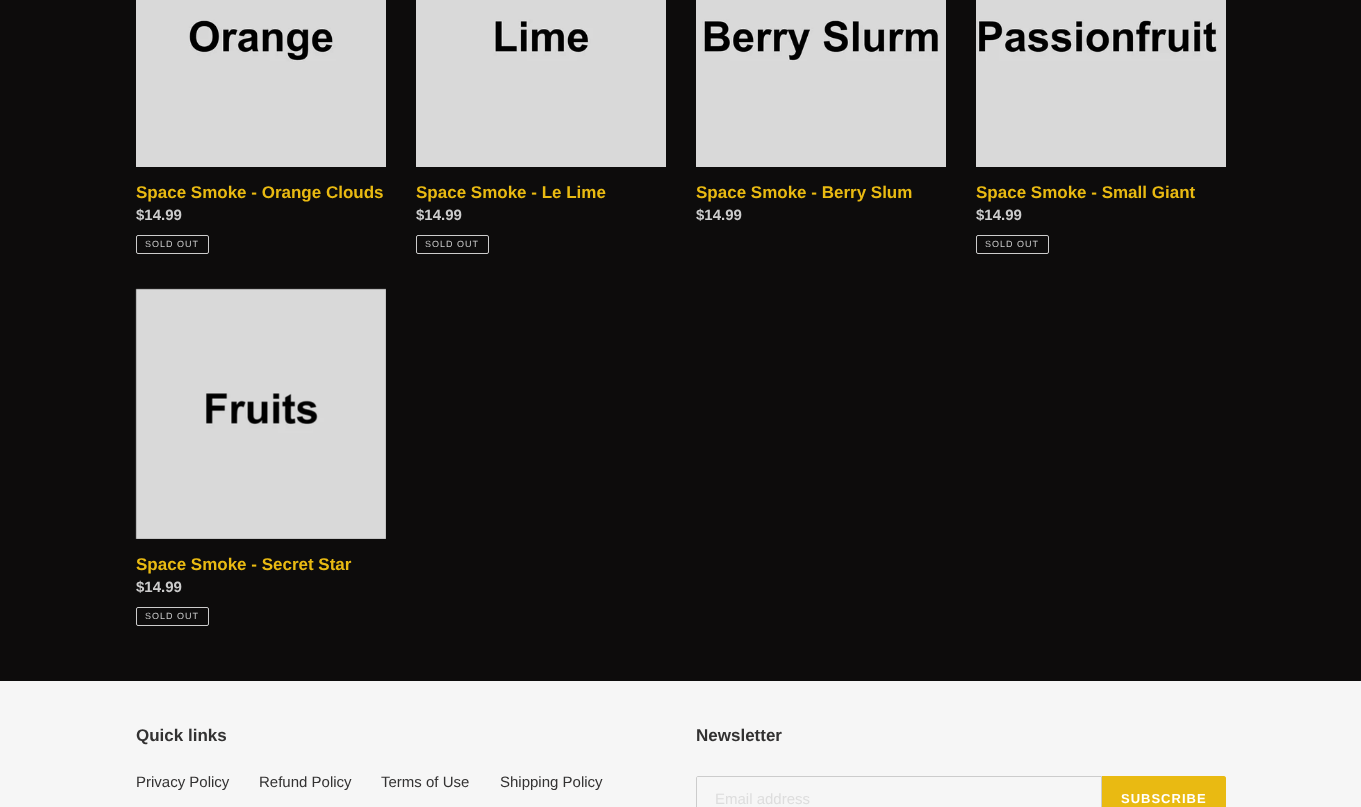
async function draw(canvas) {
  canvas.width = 1361;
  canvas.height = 807;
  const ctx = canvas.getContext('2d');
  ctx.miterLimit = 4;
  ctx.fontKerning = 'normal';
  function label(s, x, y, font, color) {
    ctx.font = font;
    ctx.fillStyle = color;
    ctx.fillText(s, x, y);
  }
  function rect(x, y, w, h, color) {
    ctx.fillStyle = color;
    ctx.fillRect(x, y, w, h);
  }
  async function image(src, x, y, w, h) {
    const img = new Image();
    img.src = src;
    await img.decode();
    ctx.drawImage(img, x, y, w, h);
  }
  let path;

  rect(0, 0, 1361, 807, '#0d0c0c');
  await image('assets/img1.png', 136, 0, 250, 167);
  label('Space Smoke - Orange Clouds', 136, 198, 'bold 17px Liberation Sans', '#e9ba12');
  label('$14.99', 136, 220, 'bold 15px Liberation Sans', '#ccc');
  ctx.beginPath();
  ctx.roundRect(136.5, 235.5, 72, 18, 1.5);
  ctx.strokeStyle = '#ccc';
  ctx.stroke();
  ctx.letterSpacing = '1px';
  label('SOLD OUT', 145, 247, '9px Liberation Sans', '#ccc');
  await image('assets/img2.png', 416, 0, 250, 167);
  ctx.letterSpacing = '0px';
  label('Space Smoke - Le Lime', 416, 198, 'bold 17px Liberation Sans', '#e9ba12');
  label('$14.99', 416, 220, 'bold 15px Liberation Sans', '#ccc');
  ctx.beginPath();
  ctx.roundRect(416.5, 235.5, 72, 18, 1.5);
  ctx.stroke();
  ctx.letterSpacing = '1px';
  label('SOLD OUT', 425, 247, '9px Liberation Sans', '#ccc');
  await image('assets/img3.png', 696, 0, 250, 167);
  ctx.letterSpacing = '0px';
  label('Space Smoke - Berry Slum', 696, 198, 'bold 17px Liberation Sans', '#e9ba12');
  label('$14.99', 696, 220, 'bold 15px Liberation Sans', '#ccc');
  await image('assets/img4.png', 976, 0, 250, 167);
  label('Space Smoke - Small Giant', 976, 198, 'bold 17px Liberation Sans', '#e9ba12');
  label('$14.99', 976, 220, 'bold 15px Liberation Sans', '#ccc');
  ctx.beginPath();
  ctx.roundRect(976.5, 235.5, 72, 18, 1.5);
  ctx.stroke();
  ctx.letterSpacing = '1px';
  label('SOLD OUT', 985, 247, '9px Liberation Sans', '#ccc');
  await image('assets/img5.png', 135, 288, 251, 251);
  ctx.letterSpacing = '0px';
  label('Space Smoke - Secret Star', 136, 570, 'bold 17px Liberation Sans', '#e9ba12');
  label('$14.99', 136, 592, 'bold 15px Liberation Sans', '#ccc');
  ctx.beginPath();
  ctx.roundRect(136.5, 607.5, 72, 18, 1.5);
  ctx.stroke();
  ctx.letterSpacing = '1px';
  label('SOLD OUT', 145, 619, '9px Liberation Sans', '#ccc');
  rect(0, 681, 1361, 126, '#f6f6f6');
  ctx.letterSpacing = '0px';
  label('Quick links', 136, 741, 'bold 17px Liberation Sans', '#333232');
  label('Privacy Policy', 136, 787, '15px Liberation Sans', '#333232');
  label('Refund Policy', 259, 787, '15px Liberation Sans', '#333232');
  label('Terms of Use', 381, 787, '15px Liberation Sans', '#333232');
  label('Shipping Policy', 500, 787, '15px Liberation Sans', '#333232');
  label('Newsletter', 696, 741, 'bold 17px Liberation Sans', '#333232');
  path = new Path2D('M698 776.5H1101.5V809.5H698C697 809.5 696.5 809 696.5 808V778C696.5 777 697 776.5 698 776.5Z');
  ctx.stroke(path);
  label('Email address', 715, 804, '15px Liberation Sans', '#ddd');
  ctx.fillStyle = '#e9ba12';
  path = new Path2D('M1102 776H1224C1225 776 1226 777 1226 778V807C1226 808 1225 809 1224 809H1102Z');
  ctx.fill(path);
  ctx.letterSpacing = '1px';
  label('SUBSCRIBE', 1121, 803, 'bold 13px Liberation Sans', '#fff');
}

draw(document.querySelector('canvas'));
